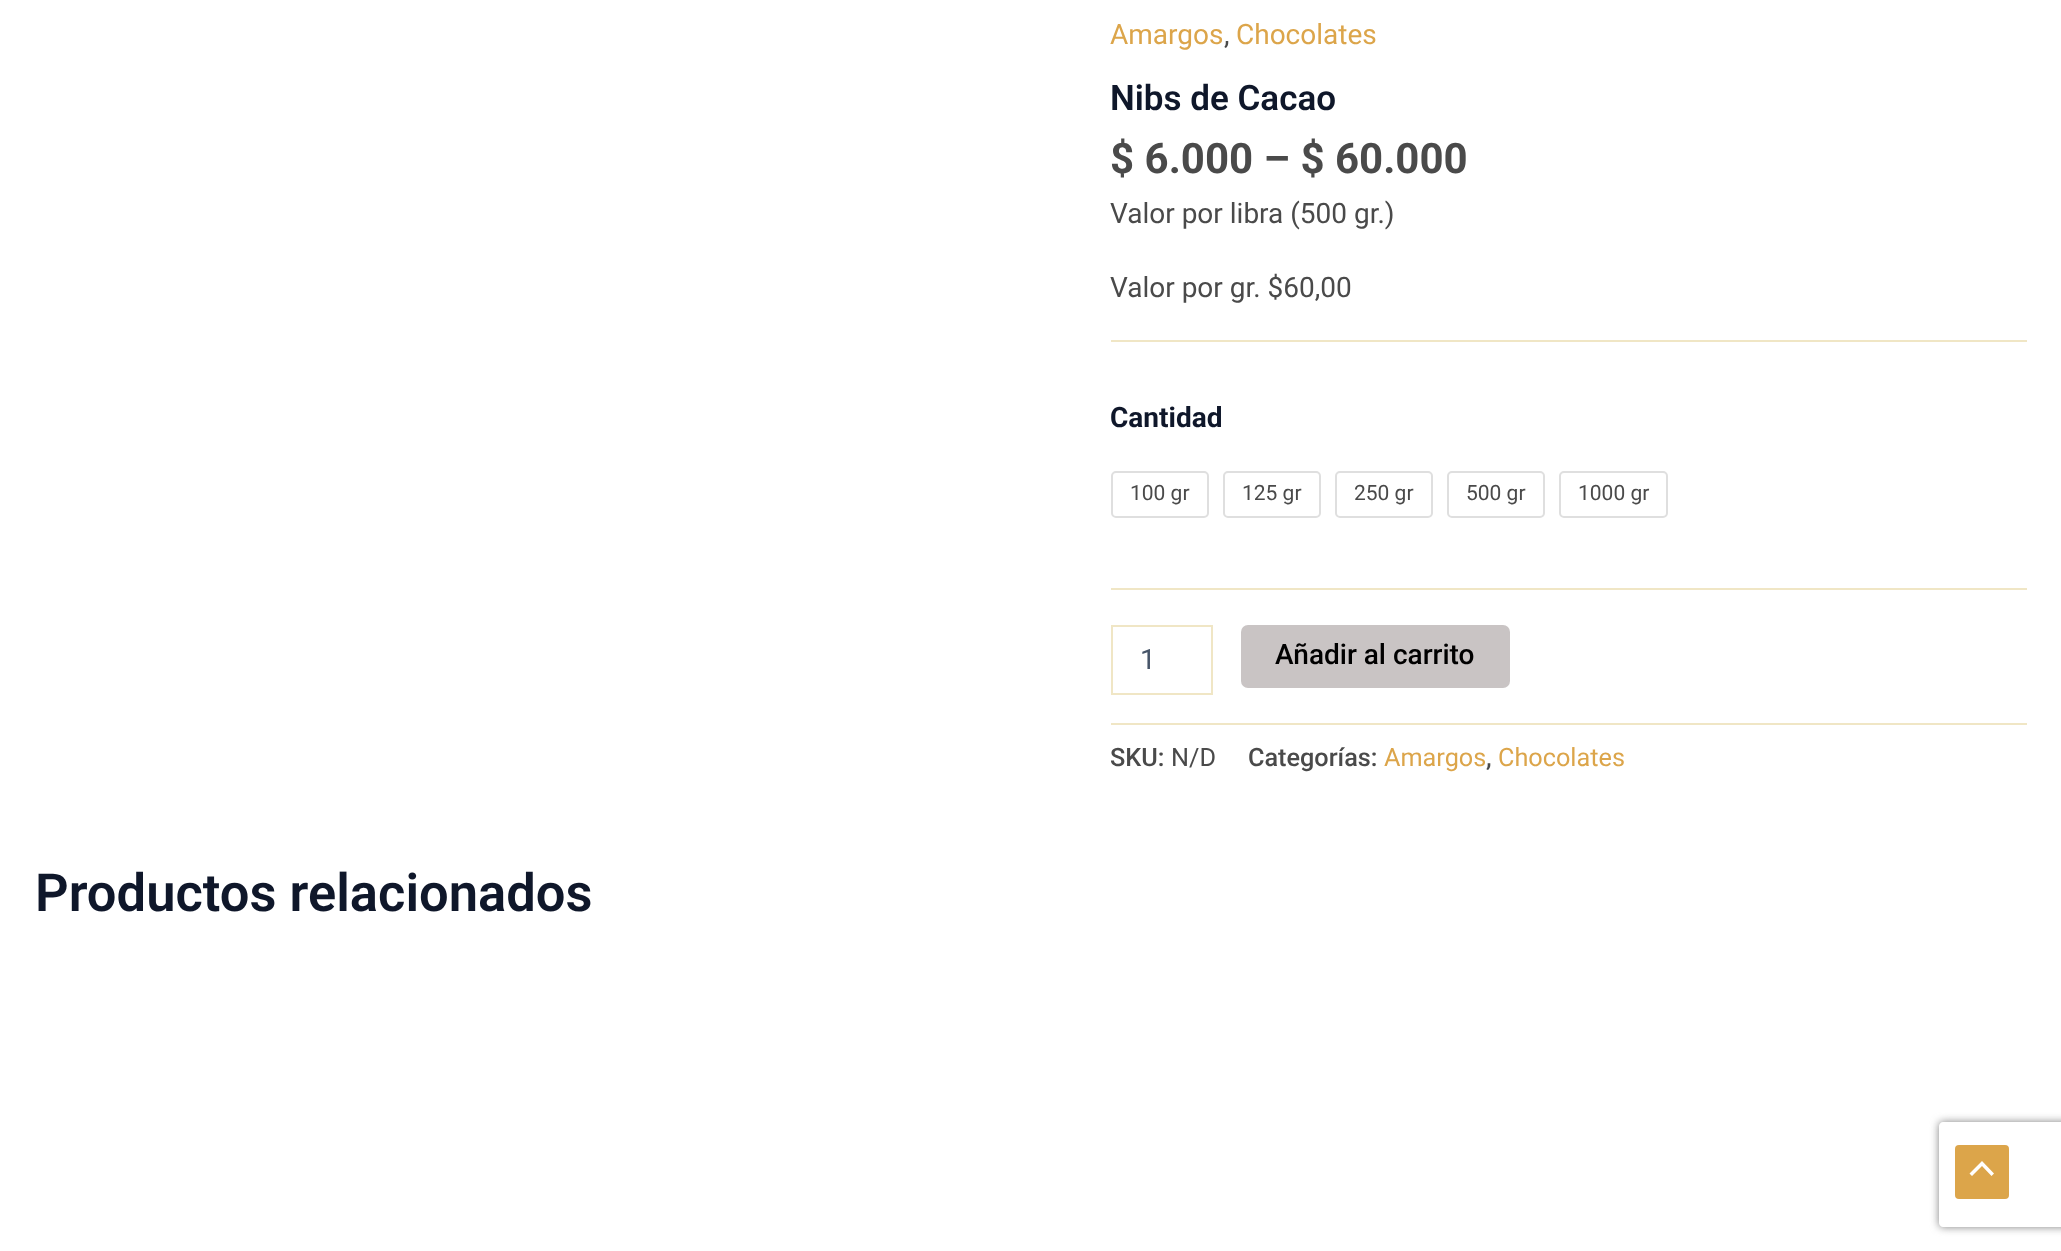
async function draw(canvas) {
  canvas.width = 2061;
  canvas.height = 1251;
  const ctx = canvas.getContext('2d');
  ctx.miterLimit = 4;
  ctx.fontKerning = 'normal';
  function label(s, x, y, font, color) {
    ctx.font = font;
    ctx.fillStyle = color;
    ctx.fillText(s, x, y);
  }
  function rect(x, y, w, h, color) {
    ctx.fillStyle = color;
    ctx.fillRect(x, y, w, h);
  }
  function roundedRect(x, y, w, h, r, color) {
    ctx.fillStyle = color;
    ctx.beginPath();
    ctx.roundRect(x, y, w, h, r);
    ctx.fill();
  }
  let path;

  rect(0, 0, 2061, 1251, '#fff');
  label('Amargos', 1110, 44, '28px Roboto', '#dca54a');
  label(',', 1224, 44, '28px Roboto', '#4a4a4a');
  label('Chocolates', 1236, 44, '28px Roboto', '#dca54a');
  label('Nibs de Cacao', 1110, 110, '600 35px Roboto', '#0f172a');
  label('$ 6.000 – $ 60.000', 1110, 173, 'bold 42px Roboto', '#4a4a4a');
  label('Valor por libra (500 gr.)', 1110, 223, '28px Roboto', '#4a4a4a');
  label('Valor por gr. $60,00', 1110, 297, '28px Roboto', '#4a4a4a');
  rect(1111, 340, 916, 2, '#f0e6c5');
  rect(1111, 588, 916, 2, '#f0e6c5');
  label('Cantidad', 1110, 427, 'bold 28px Roboto', '#0f172a');
  ctx.beginPath();
  ctx.roundRect(1112, 472, 96, 45, 4);
  ctx.strokeStyle = '#dfdfdf';
  ctx.lineWidth = 2;
  ctx.stroke();
  label('100 gr', 1130, 500, '21px Roboto', '#4a4a4a');
  ctx.beginPath();
  ctx.roundRect(1224, 472, 96, 45, 4);
  ctx.stroke();
  label('125 gr', 1242, 500, '21px Roboto', '#4a4a4a');
  ctx.beginPath();
  ctx.roundRect(1336, 472, 96, 45, 4);
  ctx.stroke();
  label('250 gr', 1354, 500, '21px Roboto', '#4a4a4a');
  ctx.beginPath();
  ctx.roundRect(1448, 472, 96, 45, 4);
  ctx.stroke();
  label('500 gr', 1466, 500, '21px Roboto', '#4a4a4a');
  ctx.beginPath();
  ctx.roundRect(1560, 472, 107, 45, 4);
  ctx.stroke();
  label('1000 gr', 1578, 500, '21px Roboto', '#4a4a4a');
  ctx.strokeStyle = '#f0e6c5';
  ctx.strokeRect(1112, 626, 100, 68);
  label('1', 1140, 669, '28px Roboto', '#475569');
  roundedRect(1241, 625, 269, 63, 7, '#c9c4c4');
  label('Añadir al carrito', 1275, 664, '500 28px Roboto', '#000');
  rect(1111, 723, 916, 2, '#f0e6c5');
  label('SKU:', 1110, 766, '500 25.25px Roboto', '#4a4a4a');
  label('N/D', 1171, 766, '25.25px Roboto', '#4a4a4a');
  label('Categorías:', 1248, 766, '500 25.25px Roboto', '#4a4a4a');
  label('Amargos', 1384, 766, '25.25px Roboto', '#dca54a');
  label(',', 1486, 766, '500 25.25px Roboto', '#4a4a4a');
  label('Chocolates', 1498, 766, '25.25px Roboto', '#dca54a');
  label('Productos relacionados', 35, 911, '600 52.5px Roboto', '#0f172a');
  ctx.save();
  path = new Path2D('M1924 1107H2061V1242H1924ZM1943 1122H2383C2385 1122 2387 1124 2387 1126V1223C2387 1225 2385 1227 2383 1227H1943C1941 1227 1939 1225 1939 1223V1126C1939 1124 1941 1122 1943 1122Z');
  ctx.clip(path, 'evenodd');
  ctx.fillStyle = '#808080';
  ctx.filter = 'blur(4.5px)';
  ctx.beginPath();
  ctx.roundRect(1939, 1122, 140, 105, 4);
  ctx.fill();
  ctx.filter = 'none';
  ctx.restore();
  roundedRect(1955, 1145, 54, 54, 4, '#dca54a');
  ctx.fillStyle = '#fff';
  path = new Path2D('M1994 1173.5L1982 1161L1969.5 1173.5L1972 1176L1982 1166L1991.5 1176Z');
  ctx.fill(path);
}

draw(document.querySelector('canvas'));
